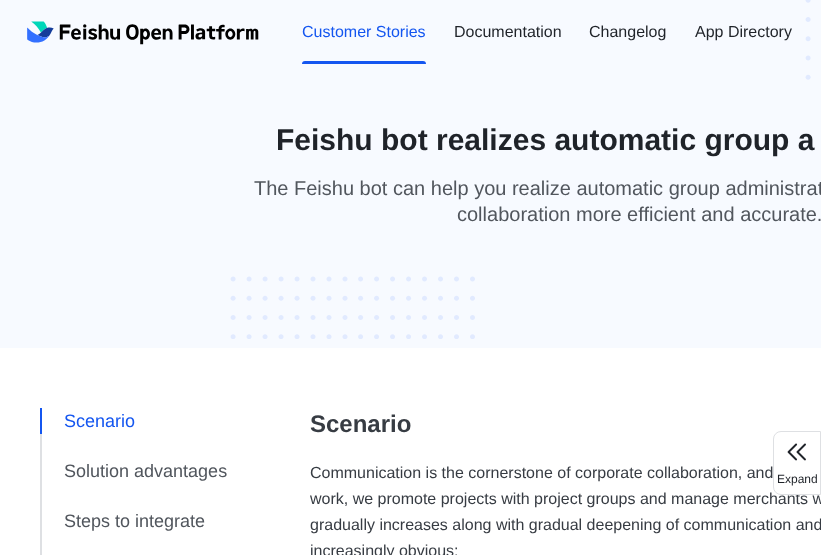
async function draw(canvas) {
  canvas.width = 821;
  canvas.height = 555;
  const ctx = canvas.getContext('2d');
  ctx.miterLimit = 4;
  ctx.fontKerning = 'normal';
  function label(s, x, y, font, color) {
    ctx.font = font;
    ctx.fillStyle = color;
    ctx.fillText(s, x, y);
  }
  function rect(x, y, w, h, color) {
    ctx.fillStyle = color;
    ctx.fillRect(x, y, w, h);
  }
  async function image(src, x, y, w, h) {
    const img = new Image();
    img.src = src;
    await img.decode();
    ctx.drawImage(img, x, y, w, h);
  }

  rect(0, 0, 821, 555, '#fff');
  rect(0, 0, 821, 348, '#f7faff');
  await image('assets/img1.png', 27, 21, 232, 24);
  label('Customer Stories', 302, 37, '16px Liberation Sans', '#1456f0');
  ctx.beginPath();
  ctx.roundRect(302, 61, 124, 3, [3, 3, 0, 0]);
  ctx.fill();
  label('Documentation', 454, 37, '16px Liberation Sans', '#1f2329');
  label('Changelog', 589, 37, '16px Liberation Sans', '#1f2329');
  label('App Directory', 695, 37, '16px Liberation Sans', '#1f2329');
  await image('assets/img2.png', 805, 0, 6, 80);
  label('Feishu bot realizes automatic group a', 276, 150, 'bold 30px Liberation Sans', '#1f2329');
  label('The Feishu bot can help you realize automatic group administrat', 254, 195, '20px Liberation Sans', '#51565d');
  label('collaboration more efficient and accurate.', 457, 221, '20px Liberation Sans', '#51565d');
  await image('assets/img3.png', 230, 276, 245, 63);
  rect(40, 408, 2, 26, '#1456f0');
  label('Scenario', 64, 427, '18px Liberation Sans', '#1456f0');
  rect(40, 434, 2, 121, '#dee0e3');
  label('Solution advantages', 64, 477, '18px Liberation Sans', '#51565d');
  label('Steps to integrate', 64, 527, '18px Liberation Sans', '#51565d');
  label('Scenario', 310, 432, 'bold 24px Liberation Sans', '#373c43');
  label('Communication is the cornerstone of corporate collaboration, and', 310, 478, '16px Liberation Sans', '#373c43');
  label('work, we promote projects with project groups and manage merchants w', 310, 504, '16px Liberation Sans', '#373c43');
  label('gradually increases along with gradual deepening of communication and', 310, 530, '16px Liberation Sans', '#373c43');
  label('increasingly obvious:', 310, 556, '16px Liberation Sans', '#373c43');
  ctx.fillStyle = '#fff';
  ctx.beginPath();
  ctx.roundRect(773.5, 431.5, 47, 63, [7.5, 0, 0, 7.5]);
  ctx.fill();
  ctx.strokeStyle = '#dee0e3';
  ctx.stroke();
  await image('assets/img4.png', 787, 443, 19, 18);
  label('Expand', 777, 483, '12px Liberation Sans', '#1f2329');
}

draw(document.querySelector('canvas'));
